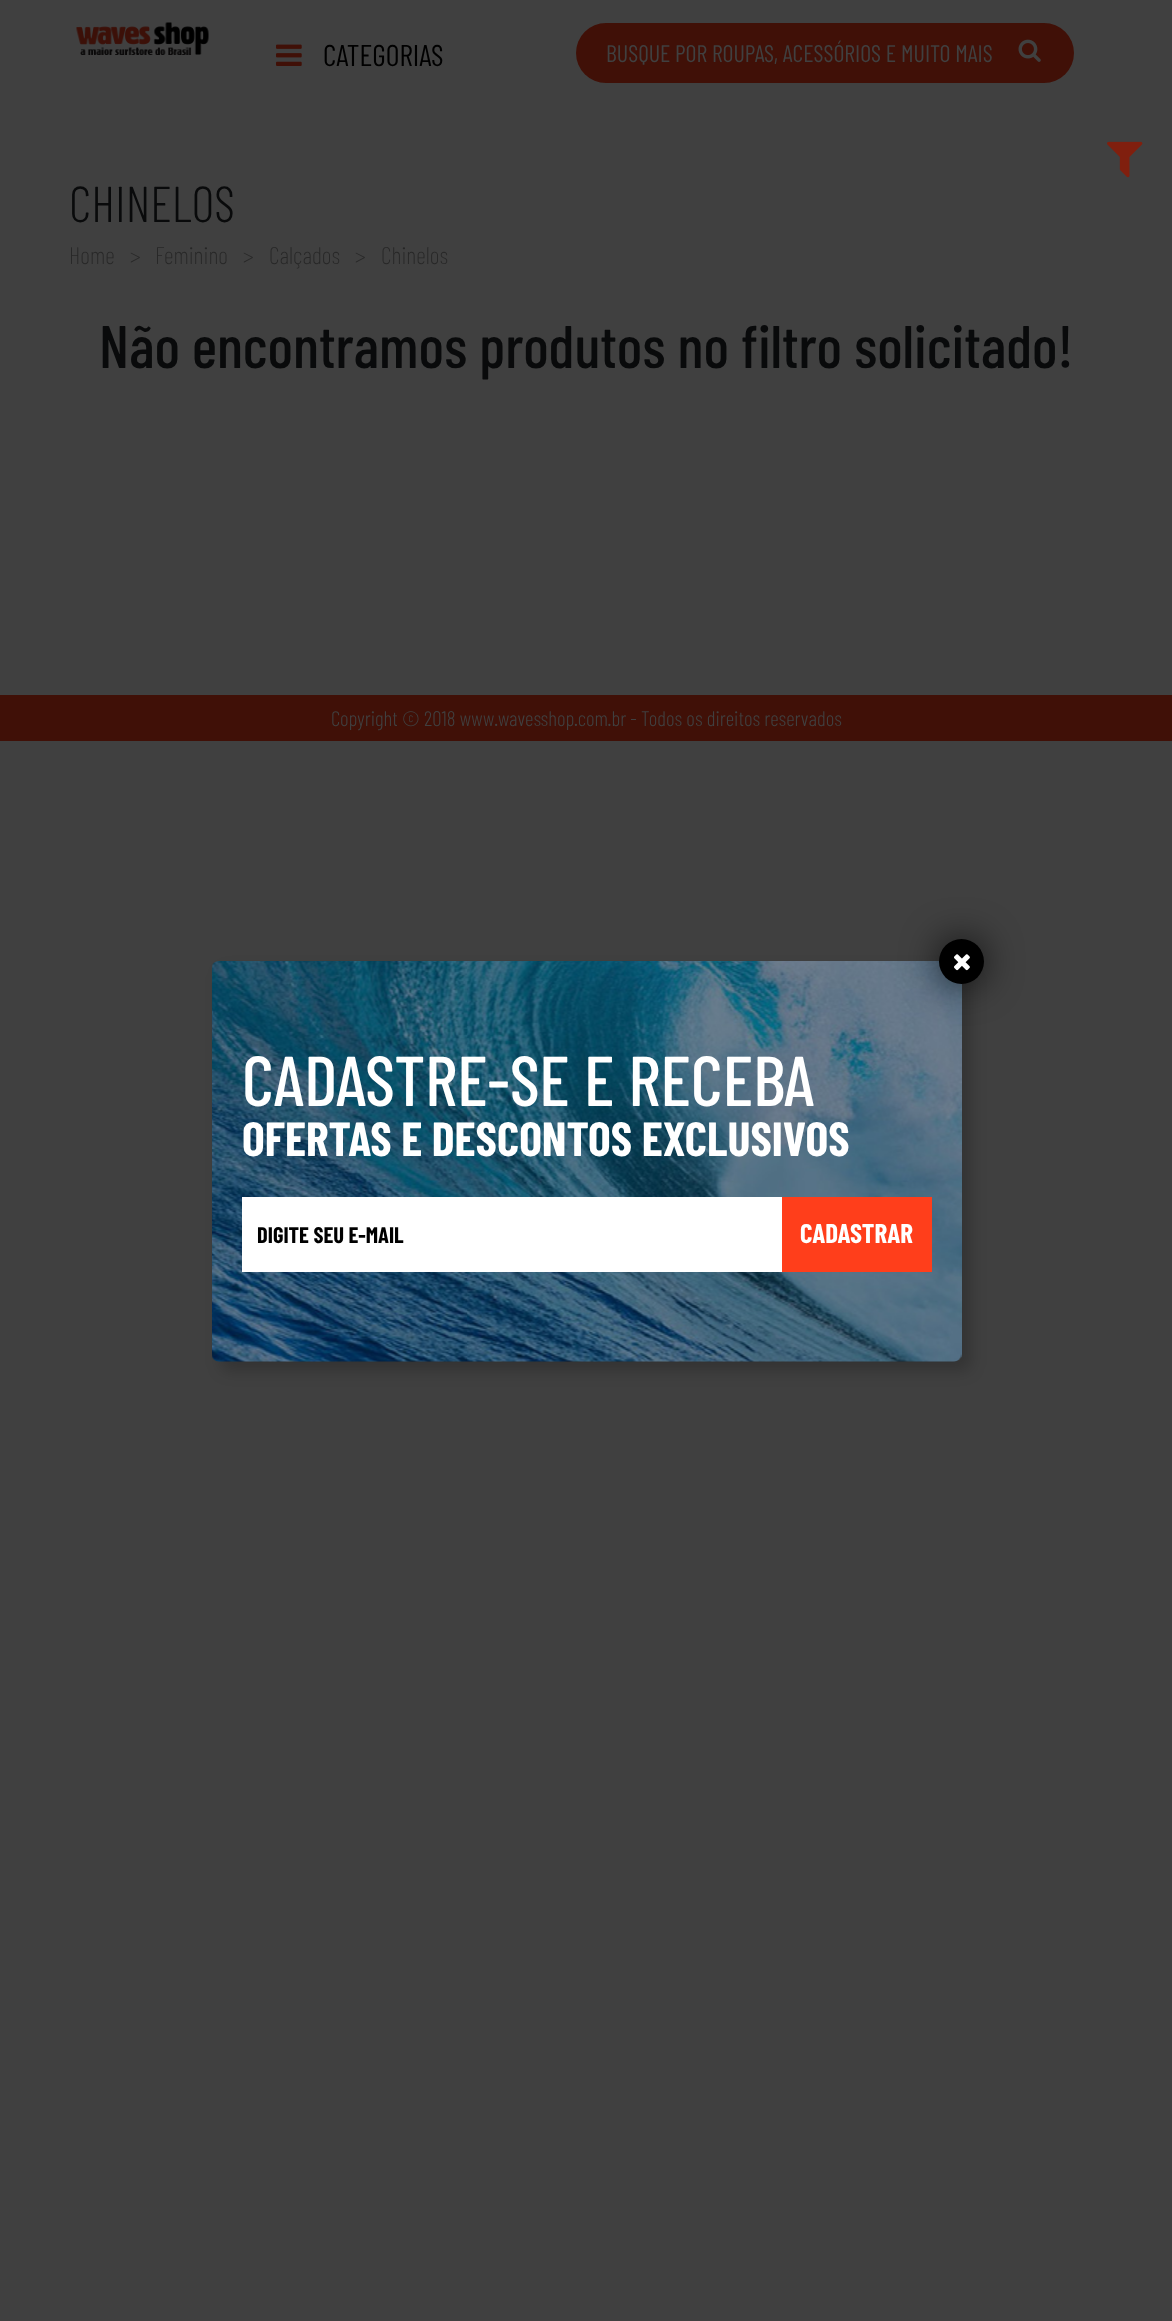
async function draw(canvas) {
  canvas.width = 1172;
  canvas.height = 2321;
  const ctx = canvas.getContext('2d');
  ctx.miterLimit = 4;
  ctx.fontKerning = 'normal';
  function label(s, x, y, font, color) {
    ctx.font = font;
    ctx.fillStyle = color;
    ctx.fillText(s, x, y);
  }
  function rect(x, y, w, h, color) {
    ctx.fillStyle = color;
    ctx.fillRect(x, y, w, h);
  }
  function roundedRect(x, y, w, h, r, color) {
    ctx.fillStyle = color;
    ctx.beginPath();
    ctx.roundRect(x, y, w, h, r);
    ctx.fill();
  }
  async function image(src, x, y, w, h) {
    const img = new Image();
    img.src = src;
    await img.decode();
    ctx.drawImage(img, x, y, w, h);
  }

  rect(0, 0, 1172, 2321, '#404040');
  await image('assets/img1.png', 76, 22, 133, 33);
  await image('assets/img2.png', 276, 44, 26, 22);
  label('CATEGORIAS', 323, 66, '30px Barlow Condensed', '#000');
  roundedRect(576, 23, 498, 60, 30, '#401007');
  label('BUSQUE POR ROUPAS, ACESSÓRIOS E MUITO MAIS', 606, 62, '24px Barlow Condensed', '#404040');
  await image('assets/img3.png', 1018, 39, 23, 23);
  await image('assets/img4.png', 1107, 141, 36, 37);
  label('CHINELOS', 69, 222, '300 50.5px Barlow Condensed', '#090a0b');
  label('Home', 69, 264, '200 24px Barlow Condensed', '#272727');
  label('>', 130, 264, '200 24px Barlow Condensed', '#272727');
  label('Feminino', 155, 264, '200 24px Barlow Condensed', '#272727');
  label('>', 243, 264, '200 24px Barlow Condensed', '#272727');
  label('Calçados', 269, 264, '200 24px Barlow Condensed', '#272727');
  label('>', 355, 264, '200 24px Barlow Condensed', '#272727');
  label('Chinelos', 381, 264, '200 24px Barlow Condensed', '#272727');
  label('Não encontramos produtos no filtro solicitado!', 99, 368, '500 60px Barlow Condensed', '#090a0b');
  rect(0, 695, 1172, 46, '#401007');
  label('Copyright © 2018 www.wavesshop.com.br - Todos os direitos reservados', 331, 726, '300 21px Barlow Condensed', '#404040');
  ctx.fillStyle = '#00000033';
  ctx.filter = 'blur(7.5px)';
  ctx.beginPath();
  ctx.roundRect(221, 971, 750, 400, 8);
  ctx.fill();
  ctx.filter = 'none';
  await image('assets/img5.png', 212, 961, 750, 401);
  ctx.fillStyle = '#000000cc';
  ctx.filter = 'blur(19px)';
  ctx.beginPath();
  ctx.roundRect(939, 939, 45, 45, 22.5);
  ctx.fill();
  ctx.filter = 'none';
  ctx.fillStyle = '#000';
  ctx.beginPath();
  ctx.arc(961.5, 961.5, 22.5, 0, 2 * Math.PI);
  ctx.fill();
  await image('assets/img6.png', 954, 954, 16, 17);
  label('CADASTRE-SE E RECEBA', 242, 1106, '500 70.5px Barlow Condensed', '#fff');
  label('OFERTAS E DESCONTOS EXCLUSIVOS', 242, 1156, 'bold 48px Barlow Condensed', '#fff');
  rect(242, 1197, 540, 75, '#fff');
  label('DIGITE SEU E-MAIL', 257, 1243, 'bold 22.5px Barlow Condensed', '#000');
  rect(782, 1197, 150, 75, '#ff3e1b');
  label('CADASTRAR', 800, 1243, 'bold 27px Barlow Condensed', '#fff');
}

draw(document.querySelector('canvas'));
